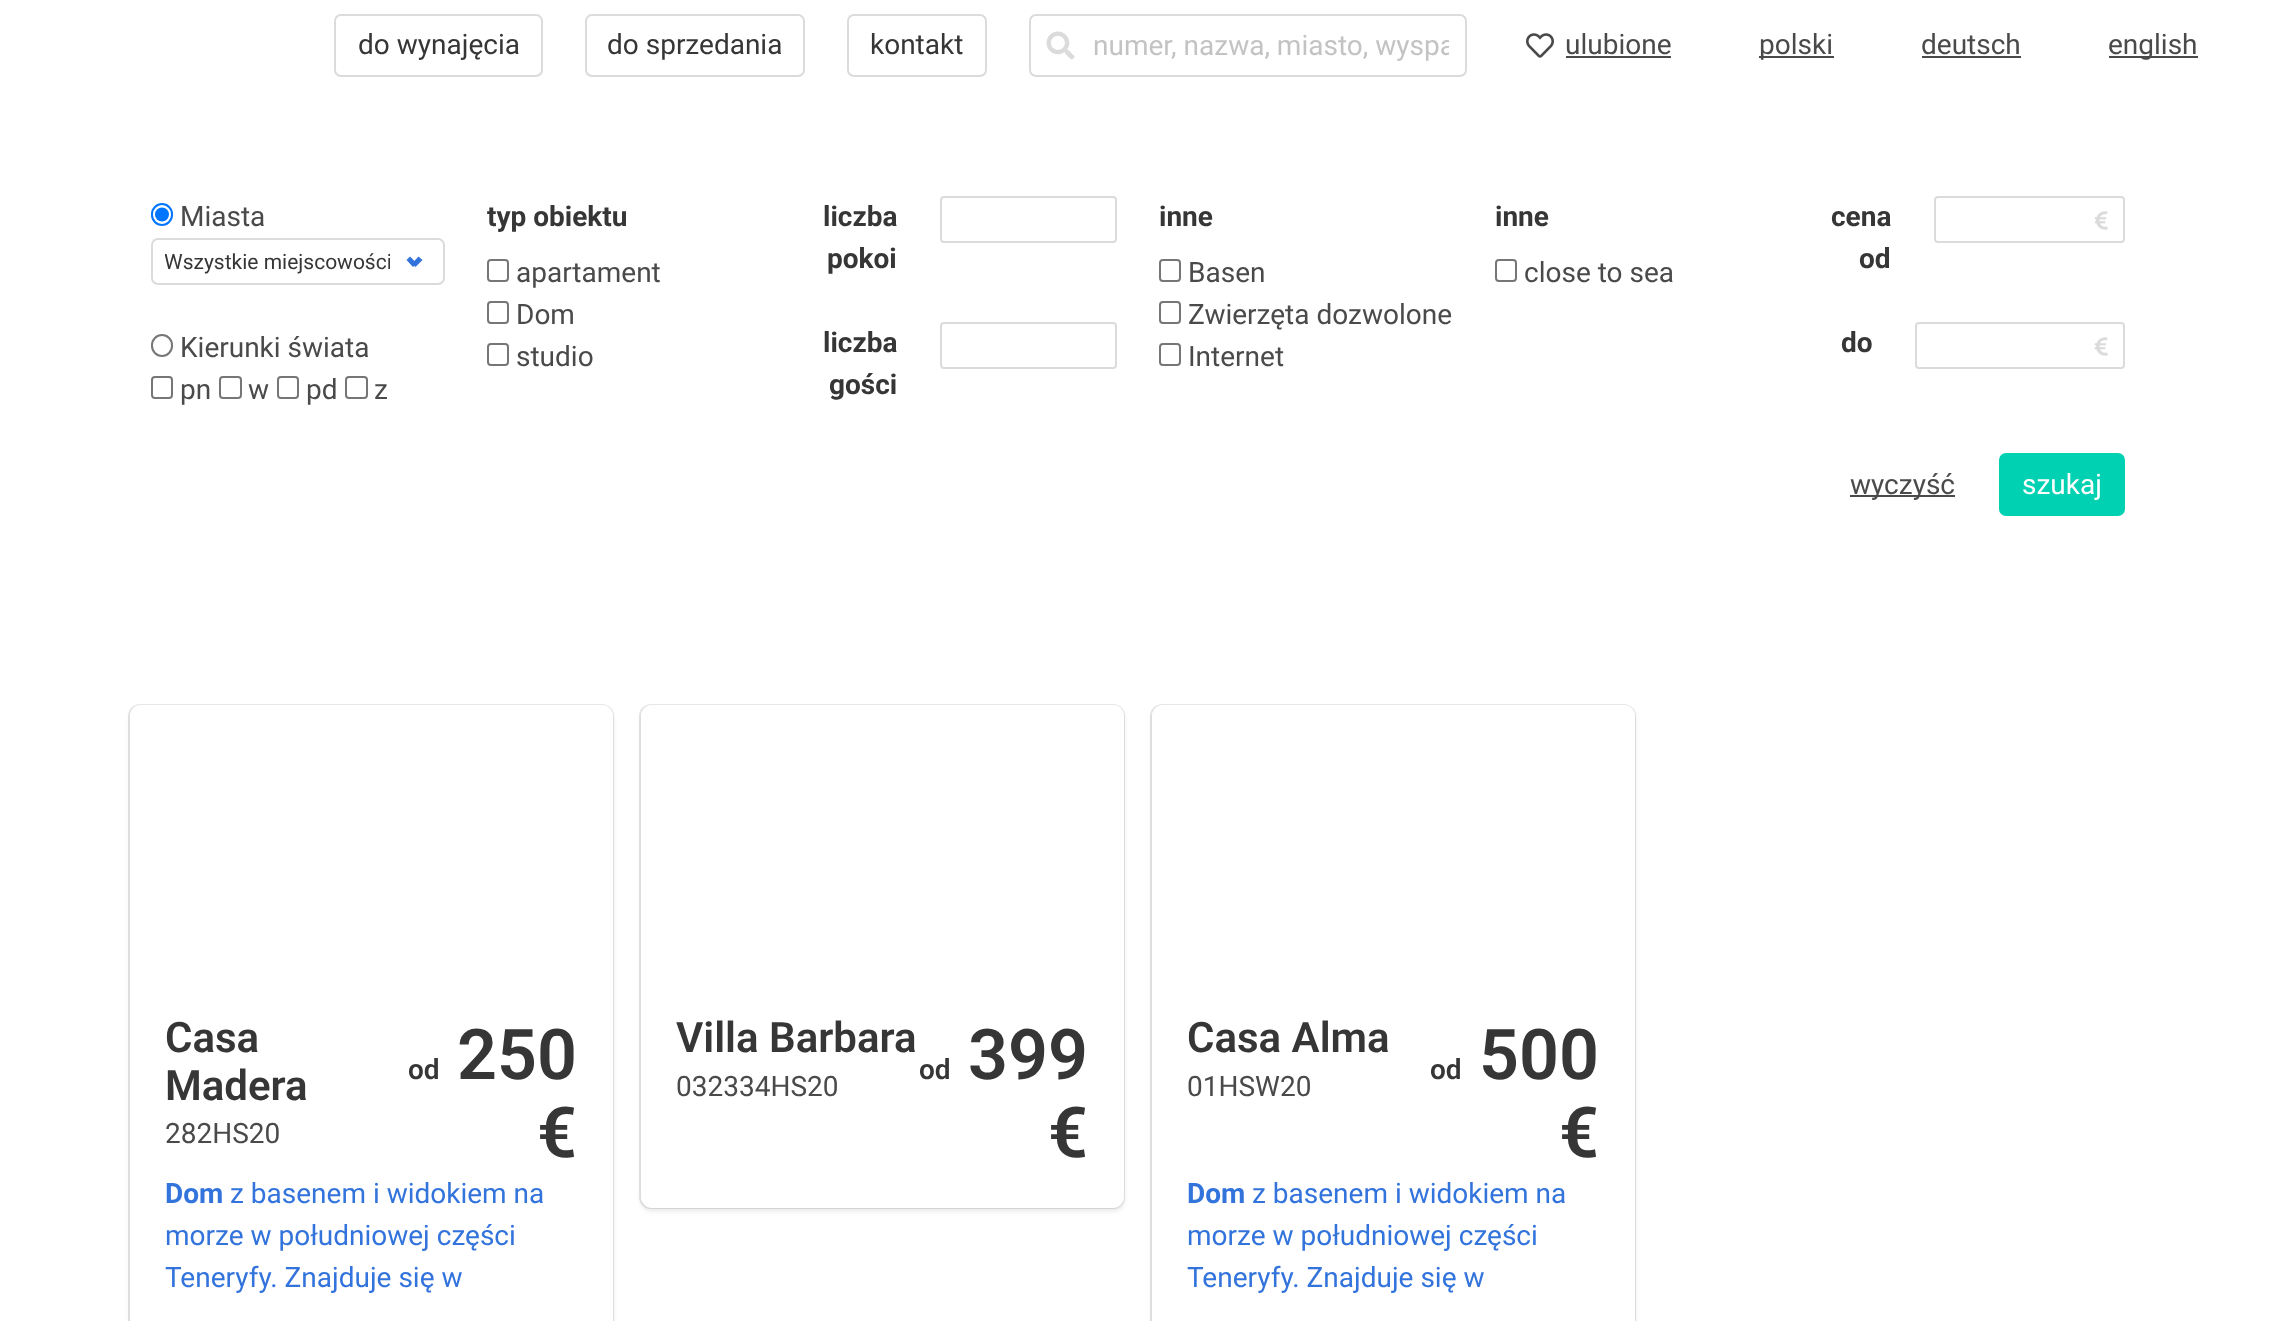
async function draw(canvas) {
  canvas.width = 2275;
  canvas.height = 1321;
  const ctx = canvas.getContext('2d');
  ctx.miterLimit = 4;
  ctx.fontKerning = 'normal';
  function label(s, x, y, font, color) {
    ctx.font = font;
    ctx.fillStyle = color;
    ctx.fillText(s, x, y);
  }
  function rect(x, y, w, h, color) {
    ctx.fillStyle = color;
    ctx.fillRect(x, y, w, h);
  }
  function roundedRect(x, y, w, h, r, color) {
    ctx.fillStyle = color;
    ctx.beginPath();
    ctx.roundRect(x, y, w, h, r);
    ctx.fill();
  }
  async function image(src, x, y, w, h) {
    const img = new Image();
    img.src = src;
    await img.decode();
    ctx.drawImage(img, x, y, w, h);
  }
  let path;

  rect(0, 0, 2275, 1321, '#fff');
  ctx.beginPath();
  ctx.roundRect(335, 15, 207, 61, 6);
  ctx.strokeStyle = '#dbdbdb';
  ctx.lineWidth = 2;
  ctx.stroke();
  label('do wynajęcia', 358, 54, '28px Roboto', '#363636');
  ctx.beginPath();
  ctx.roundRect(586, 15, 218, 61, 6);
  ctx.stroke();
  label('do sprzedania', 607, 54, '28px Roboto', '#363636');
  ctx.beginPath();
  ctx.roundRect(848, 15, 138, 61, 6);
  ctx.stroke();
  label('kontakt', 870, 54, '28px Roboto', '#363636');
  ctx.beginPath();
  ctx.roundRect(1030, 15, 436, 61, 6);
  ctx.stroke();
  await image('assets/img1.png', 1046, 31, 29, 29);
  ctx.save();
  ctx.beginPath();
  ctx.rect(1094, 30, 355, 33);
  ctx.clip();
  label('numer, nazwa, miasto, wyspa', 1093, 55, '28px Roboto', '#c3c3c3');
  ctx.restore();
  await image('assets/img2.png', 1526, 33, 28, 25);
  label('ulubione', 1565, 54, '28px Roboto', '#4a4a4a');
  rect(1566, 56, 105, 2, '#4a4a4a');
  rect(1759, 56, 75, 2, '#4a4a4a');
  label('polski', 1759, 54, '28px Roboto', '#4a4a4a');
  label('deutsch', 1921, 54, '28px Roboto', '#4a4a4a');
  rect(1922, 56, 99, 2, '#4a4a4a');
  rect(2109, 56, 89, 2, '#4a4a4a');
  label('english', 2108, 54, '28px Roboto', '#4a4a4a');
  ctx.beginPath();
  ctx.roundRect(152, 204, 20, 21, 10);
  ctx.strokeStyle = '#0075ff';
  ctx.stroke();
  ctx.fillStyle = '#0075ff';
  ctx.beginPath();
  ctx.arc(162, 214.5, 7, 0, 2 * Math.PI);
  ctx.fill();
  label('Miasta', 180, 226, '28px Roboto', '#4a4a4a');
  ctx.beginPath();
  ctx.roundRect(152, 239, 292, 45, 6);
  ctx.strokeStyle = '#dbdbdb';
  ctx.stroke();
  ctx.save();
  ctx.beginPath();
  ctx.rect(165, 247, 225, 31);
  ctx.clip();
  label('Wszystkie miejscowości', 164, 269, '21px Roboto', '#363636');
  ctx.restore();
  ctx.fillStyle = '#3273dc';
  path = new Path2D('M412 263.5L418.5 256.5L422.5 260L415.5 267Z');
  ctx.fill(path);
  path = new Path2D('M406.5 260L410 256.5L417 263.5L413 267Z');
  ctx.fill(path);
  ctx.beginPath();
  ctx.roundRect(152, 335, 20, 21, 10);
  ctx.strokeStyle = '#767676';
  ctx.stroke();
  label('Kierunki świata', 180, 357, '28px Roboto', '#4a4a4a');
  ctx.beginPath();
  ctx.roundRect(152, 377, 20, 21, 3);
  ctx.stroke();
  label('pn', 180, 399, '28px Roboto', '#4a4a4a');
  ctx.beginPath();
  ctx.roundRect(220, 377, 21, 21, 3);
  ctx.stroke();
  label('w', 248, 399, '28px Roboto', '#4a4a4a');
  ctx.beginPath();
  ctx.roundRect(278, 377, 20, 21, 3);
  ctx.stroke();
  label('pd', 306, 399, '28px Roboto', '#4a4a4a');
  ctx.beginPath();
  ctx.roundRect(346, 377, 21, 21, 3);
  ctx.stroke();
  label('z', 374, 399, '28px Roboto', '#4a4a4a');
  label('typ obiektu', 487, 226, 'bold 28px Roboto', '#363636');
  ctx.beginPath();
  ctx.roundRect(488, 260, 20, 21, 3);
  ctx.stroke();
  label('apartament', 516, 282, '28px Roboto', '#4a4a4a');
  ctx.beginPath();
  ctx.roundRect(488, 302, 20, 21, 3);
  ctx.stroke();
  label('Dom', 516, 324, '28px Roboto', '#4a4a4a');
  ctx.beginPath();
  ctx.roundRect(488, 344, 20, 21, 3);
  ctx.stroke();
  label('studio', 516, 366, '28px Roboto', '#4a4a4a');
  label('liczba', 823, 226, 'bold 28px Roboto', '#363636');
  label('pokoi', 827, 268, 'bold 28px Roboto', '#363636');
  ctx.beginPath();
  ctx.roundRect(941, 197, 175, 45, 3);
  ctx.strokeStyle = '#dbdbdb';
  ctx.stroke();
  label('liczba', 823, 352, 'bold 28px Roboto', '#363636');
  label('gości', 829, 394, 'bold 28px Roboto', '#363636');
  ctx.beginPath();
  ctx.roundRect(941, 323, 175, 45, 3);
  ctx.stroke();
  label('inne', 1159, 226, 'bold 28px Roboto', '#363636');
  ctx.beginPath();
  ctx.roundRect(1160, 260, 20, 21, 3);
  ctx.strokeStyle = '#767676';
  ctx.stroke();
  label('Basen', 1188, 282, '28px Roboto', '#4a4a4a');
  ctx.beginPath();
  ctx.roundRect(1160, 302, 20, 21, 3);
  ctx.stroke();
  label('Zwierzęta dozwolone', 1188, 324, '28px Roboto', '#4a4a4a');
  ctx.beginPath();
  ctx.roundRect(1160, 344, 20, 21, 3);
  ctx.stroke();
  label('Internet', 1188, 366, '28px Roboto', '#4a4a4a');
  label('inne', 1495, 226, 'bold 28px Roboto', '#363636');
  ctx.beginPath();
  ctx.roundRect(1496, 260, 20, 21, 3);
  ctx.stroke();
  label('close to sea', 1524, 282, '28px Roboto', '#4a4a4a');
  label('cena', 1831, 226, 'bold 28px Roboto', '#363636');
  label('od', 1859, 268, 'bold 28px Roboto', '#363636');
  ctx.beginPath();
  ctx.roundRect(1935, 197, 189, 45, 3);
  ctx.strokeStyle = '#dbdbdb';
  ctx.stroke();
  await image('assets/img3.png', 2094, 211, 14, 19);
  label('do', 1841, 352, 'bold 28px Roboto', '#363636');
  ctx.beginPath();
  ctx.roundRect(1916, 323, 208, 45, 3);
  ctx.stroke();
  await image('assets/img3.png', 2094, 337, 14, 19);
  rect(1850, 495, 105, 2, '#4a4a4a');
  label('wyczyść', 1850, 494, '28px Roboto', '#4a4a4a');
  roundedRect(1999, 453, 126, 63, 7, '#00d1b2');
  label('szukaj', 2022, 494, '28px Roboto', '#fff');
  ctx.beginPath();
  ctx.roundRect(129, 705, 484, 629, 11);
  ctx.strokeStyle = '#e7e7e7';
  ctx.stroke();
  ctx.fillStyle = '#0a0a0a1a';
  ctx.filter = 'blur(2.5px)';
  ctx.beginPath();
  ctx.roundRect(130, 709, 483, 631, 11);
  ctx.fill();
  ctx.filter = 'none';
  roundedRect(130, 705, 483, 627, 11, '#fff');
  label('Casa', 165, 1052, '600 42px Roboto', '#363636');
  label('Madera', 165, 1100, '600 42px Roboto', '#363636');
  label('282HS20', 165, 1143, '28px Roboto', '#4a4a4a');
  label('od', 408, 1079, '600 28px Roboto', '#363636');
  label('250', 457, 1079, '600 70px Roboto', '#363636');
  label('€', 537, 1157, '600 70px Roboto', '#363636');
  label('Dom', 165, 1203, 'bold 28px Roboto', '#3273dc');
  label('z basenem i widokiem na', 230, 1203, '28px Roboto', '#3273dc');
  label('morze w południowej części', 165, 1245, '28px Roboto', '#3273dc');
  label('Teneryfy. Znajduje się w', 165, 1287, '28px Roboto', '#3273dc');
  ctx.beginPath();
  ctx.roundRect(640, 705, 484, 503, 11);
  ctx.stroke();
  ctx.fillStyle = '#0a0a0a1a';
  ctx.filter = 'blur(2.5px)';
  ctx.beginPath();
  ctx.roundRect(641, 709, 483, 502, 11);
  ctx.fill();
  ctx.filter = 'none';
  roundedRect(641, 705, 483, 503, 11, '#fff');
  label('Villa Barbara', 676, 1052, '600 42px Roboto', '#363636');
  label('032334HS20', 676, 1096, '28px Roboto', '#4a4a4a');
  label('od', 919, 1079, '600 28px Roboto', '#363636');
  label('399', 968, 1079, '600 70px Roboto', '#363636');
  label('€', 1048, 1157, '600 70px Roboto', '#363636');
  ctx.beginPath();
  ctx.roundRect(1151, 705, 484, 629, 11);
  ctx.stroke();
  ctx.fillStyle = '#0a0a0a1a';
  ctx.filter = 'blur(2.5px)';
  ctx.beginPath();
  ctx.roundRect(1152, 709, 483, 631, 11);
  ctx.fill();
  ctx.filter = 'none';
  roundedRect(1152, 705, 483, 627, 11, '#fff');
  label('Casa Alma', 1187, 1052, '600 42px Roboto', '#363636');
  label('01HSW20', 1187, 1096, '28px Roboto', '#4a4a4a');
  label('od', 1430, 1079, '600 28px Roboto', '#363636');
  label('500', 1479, 1079, '600 70px Roboto', '#363636');
  label('€', 1559, 1157, '600 70px Roboto', '#363636');
  label('Dom', 1187, 1203, 'bold 28px Roboto', '#3273dc');
  label('z basenem i widokiem na', 1252, 1203, '28px Roboto', '#3273dc');
  label('morze w południowej części', 1187, 1245, '28px Roboto', '#3273dc');
  label('Teneryfy. Znajduje się w', 1187, 1287, '28px Roboto', '#3273dc');
}

draw(document.querySelector('canvas'));
